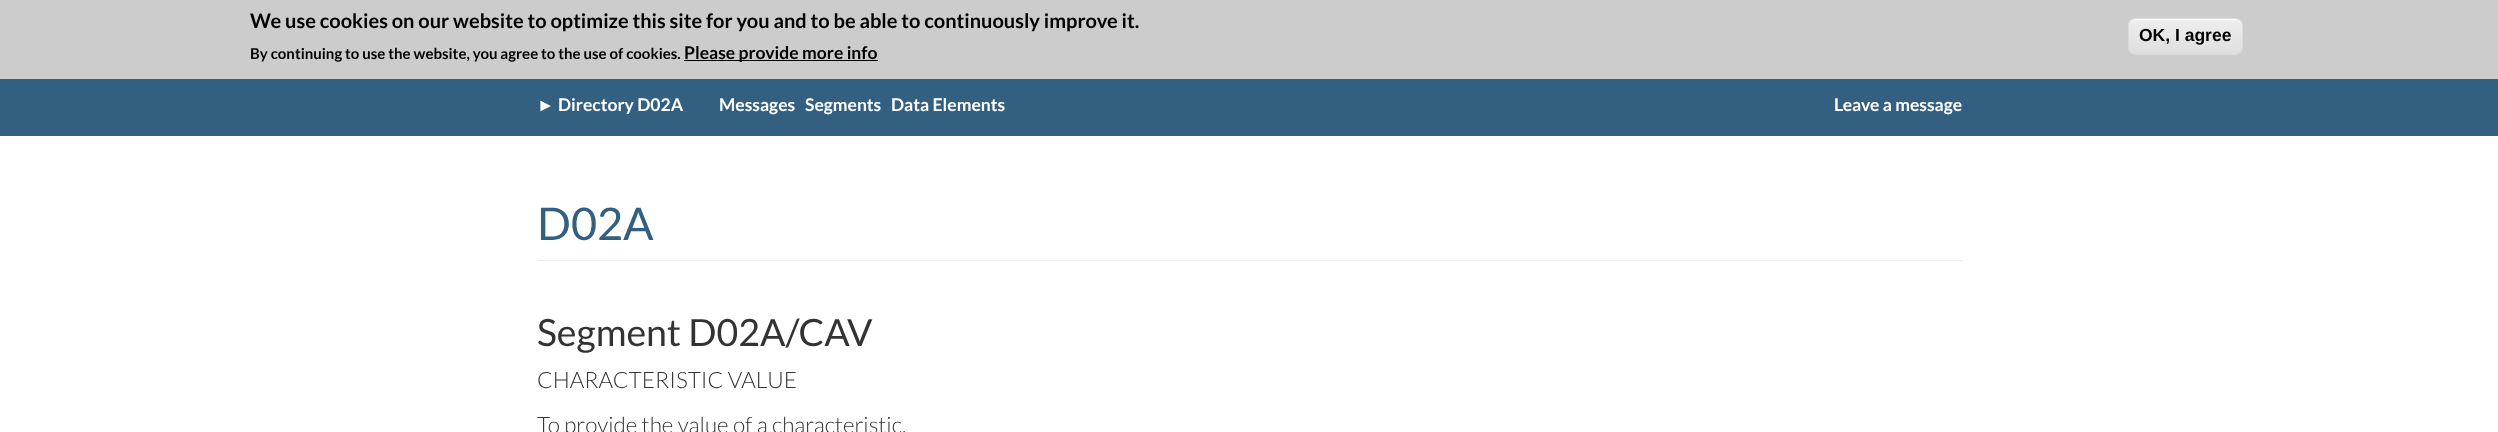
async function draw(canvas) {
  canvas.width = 2498;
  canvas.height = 432;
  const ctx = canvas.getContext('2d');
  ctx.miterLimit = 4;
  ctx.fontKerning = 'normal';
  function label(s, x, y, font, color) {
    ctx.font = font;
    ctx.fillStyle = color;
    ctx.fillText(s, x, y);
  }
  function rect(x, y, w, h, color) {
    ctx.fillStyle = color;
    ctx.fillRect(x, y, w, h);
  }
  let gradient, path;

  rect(0, 0, 2498, 432, '#fff');
  rect(0, 0, 2498, 79, '#ccc');
  label('We use cookies on our website to optimize this site for you and to be able to continuously improve it.', 250, 28, 'bold 20px Lato', '#000');
  label('By continuing to use the website, you agree to the use of cookies.', 250, 59, 'bold 15px Lato', '#000');
  rect(684, 60, 194, 1, '#000');
  label('Please provide more info', 684, 59, 'bold 17.5px Lato', '#000');
  ctx.save();
  ctx.beginPath();
  ctx.roundRect(2128, 18, 115, 37, 8);
  ctx.clip();
  gradient = ctx.createLinearGradient(2185, 19, 2185, 54);
  gradient.addColorStop(0.05, '#ededed');
  gradient.addColorStop(1, '#dfdfdf');
  ctx.fillStyle = gradient;
  ctx.fillRect(2128, 19, 115, 35);
  ctx.restore();
  ctx.fillStyle = '#fff';
  path = new Path2D('M2135 20H2235C2238 20 2241 23 2241 26C2241 15 2224 19 2218 19H2152C2146 19 2129 15 2129 26C2129 23 2132 20 2135 20Z');
  ctx.fill(path);
  ctx.beginPath();
  ctx.roundRect(2128.5, 18.5, 114, 36, 7.5);
  ctx.strokeStyle = '#dcdcdc';
  ctx.stroke();
  label('OK, I agree', 2139, 41, 'bold 17.5px Liberation Sans', '#000');
  rect(0, 79, 2498, 57, '#336081');
  label('►', 537, 111, 'bold 17.5px Liberation Sans', '#fff');
  label('Directory D02A', 558, 111, 'bold 17.5px Lato', '#fff');
  label('Messages', 719, 111, 'bold 17.5px Lato', '#fff');
  label('Segments', 805, 111, 'bold 17.5px Lato', '#fff');
  label('Data Elements', 891, 111, 'bold 17.5px Lato', '#fff');
  label('Leave a message', 1834, 111, 'bold 17.5px Lato', '#fff');
  rect(538, 260, 1425, 1, '#eee');
  label('D02A', 537, 240, '45px Lato', '#336081');
  label('Segment D02A/CAV', 537, 346, '37.5px Lato', '#333');
  label('CHARACTERISTIC VALUE', 537, 388, '300 22.5px Lato', '#333');
  label('To provide the value of a characteristic.', 537, 433, '300 22.5px Lato', '#333');
}

draw(document.querySelector('canvas'));
